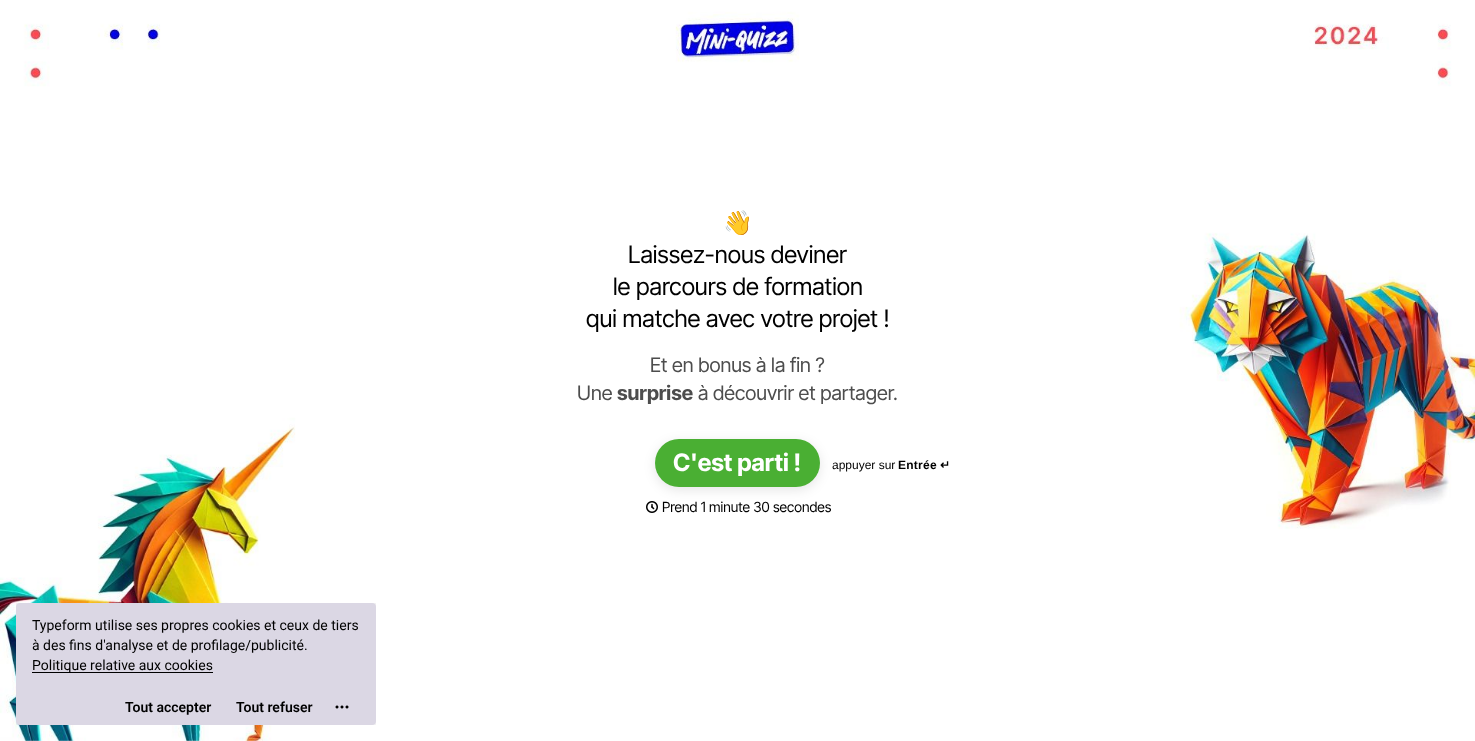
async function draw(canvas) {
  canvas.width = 1475;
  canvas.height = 741;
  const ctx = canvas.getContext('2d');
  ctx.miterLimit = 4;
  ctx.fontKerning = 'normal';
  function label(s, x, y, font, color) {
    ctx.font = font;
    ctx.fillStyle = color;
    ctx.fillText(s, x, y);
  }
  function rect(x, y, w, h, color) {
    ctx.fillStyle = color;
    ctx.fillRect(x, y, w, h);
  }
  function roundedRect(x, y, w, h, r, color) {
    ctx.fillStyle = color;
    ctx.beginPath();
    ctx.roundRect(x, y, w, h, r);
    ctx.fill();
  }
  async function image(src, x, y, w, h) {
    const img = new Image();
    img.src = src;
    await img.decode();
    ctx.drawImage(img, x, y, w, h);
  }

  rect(0, 0, 1475, 741, '#fff');
  await image('assets/img1.png', 0, 0, 1475, 741);
  label('👋', 723, 231, '24px Noto Color Emoji', '#000');
  label('Laissez-nous deviner', 628, 263, '24px Inter Tight', '#000');
  label('le parcours de formation', 613, 295, '24px Inter Tight', '#000');
  label('qui matche avec votre projet !', 586, 327, '24px Inter Tight', '#000');
  label('Et en bonus à la fin ?', 650, 372, '20px Inter Tight', '#4d4d4d');
  label('Une', 577, 400, '20px Inter Tight', '#4d4d4d');
  label('surprise', 617, 400, 'bold 20px Inter Tight', '#4d4d4d');
  label('à découvrir et partager.', 698, 400, '20px Inter Tight', '#4d4d4d');
  ctx.fillStyle = '#0000001a';
  ctx.filter = 'blur(6px)';
  ctx.beginPath();
  ctx.roundRect(655, 442, 165, 48, 24);
  ctx.fill();
  ctx.filter = 'none';
  roundedRect(655, 439, 165, 48, 24, '#4aaf33');
  label('C\'est parti !', 673, 471, 'bold 24px Inter Tight', '#fff');
  label('appuyer sur', 832, 469, '12px Liberation Sans', '#000');
  ctx.letterSpacing = '0.25px';
  label('Entrée', 898, 469, 'bold 12px Liberation Sans', '#000');
  label('↵', 940, 469, 'bold 12px DejaVu Sans', '#000');
  await image('assets/img2.png', 646, 501, 12, 12);
  ctx.letterSpacing = '0px';
  label('Prend 1 minute 30 secondes', 662, 512, '14px Inter Tight', '#000');
  roundedRect(16, 603, 360, 122, 4, '#e7e3f1');
  rect(16, 603, 360, 122, '#0000000d');
  label('Typeform utilise ses propres cookies et ceux de tiers', 32, 630, '14px Roboto', '#000');
  label('à des fins d\'analyse et de profilage/publicité.', 32, 650, '14px Roboto', '#000');
  rect(32, 672, 181, 1, '#000');
  label('Politique relative aux cookies', 32, 670, '14px Roboto', '#000');
  label('Tout accepter', 125, 712, '600 14px Roboto', '#000');
  label('Tout refuser', 236, 712, '600 14px Roboto', '#000');
  await image('assets/img3.png', 335, 705, 14, 4);
}

draw(document.querySelector('canvas'));
